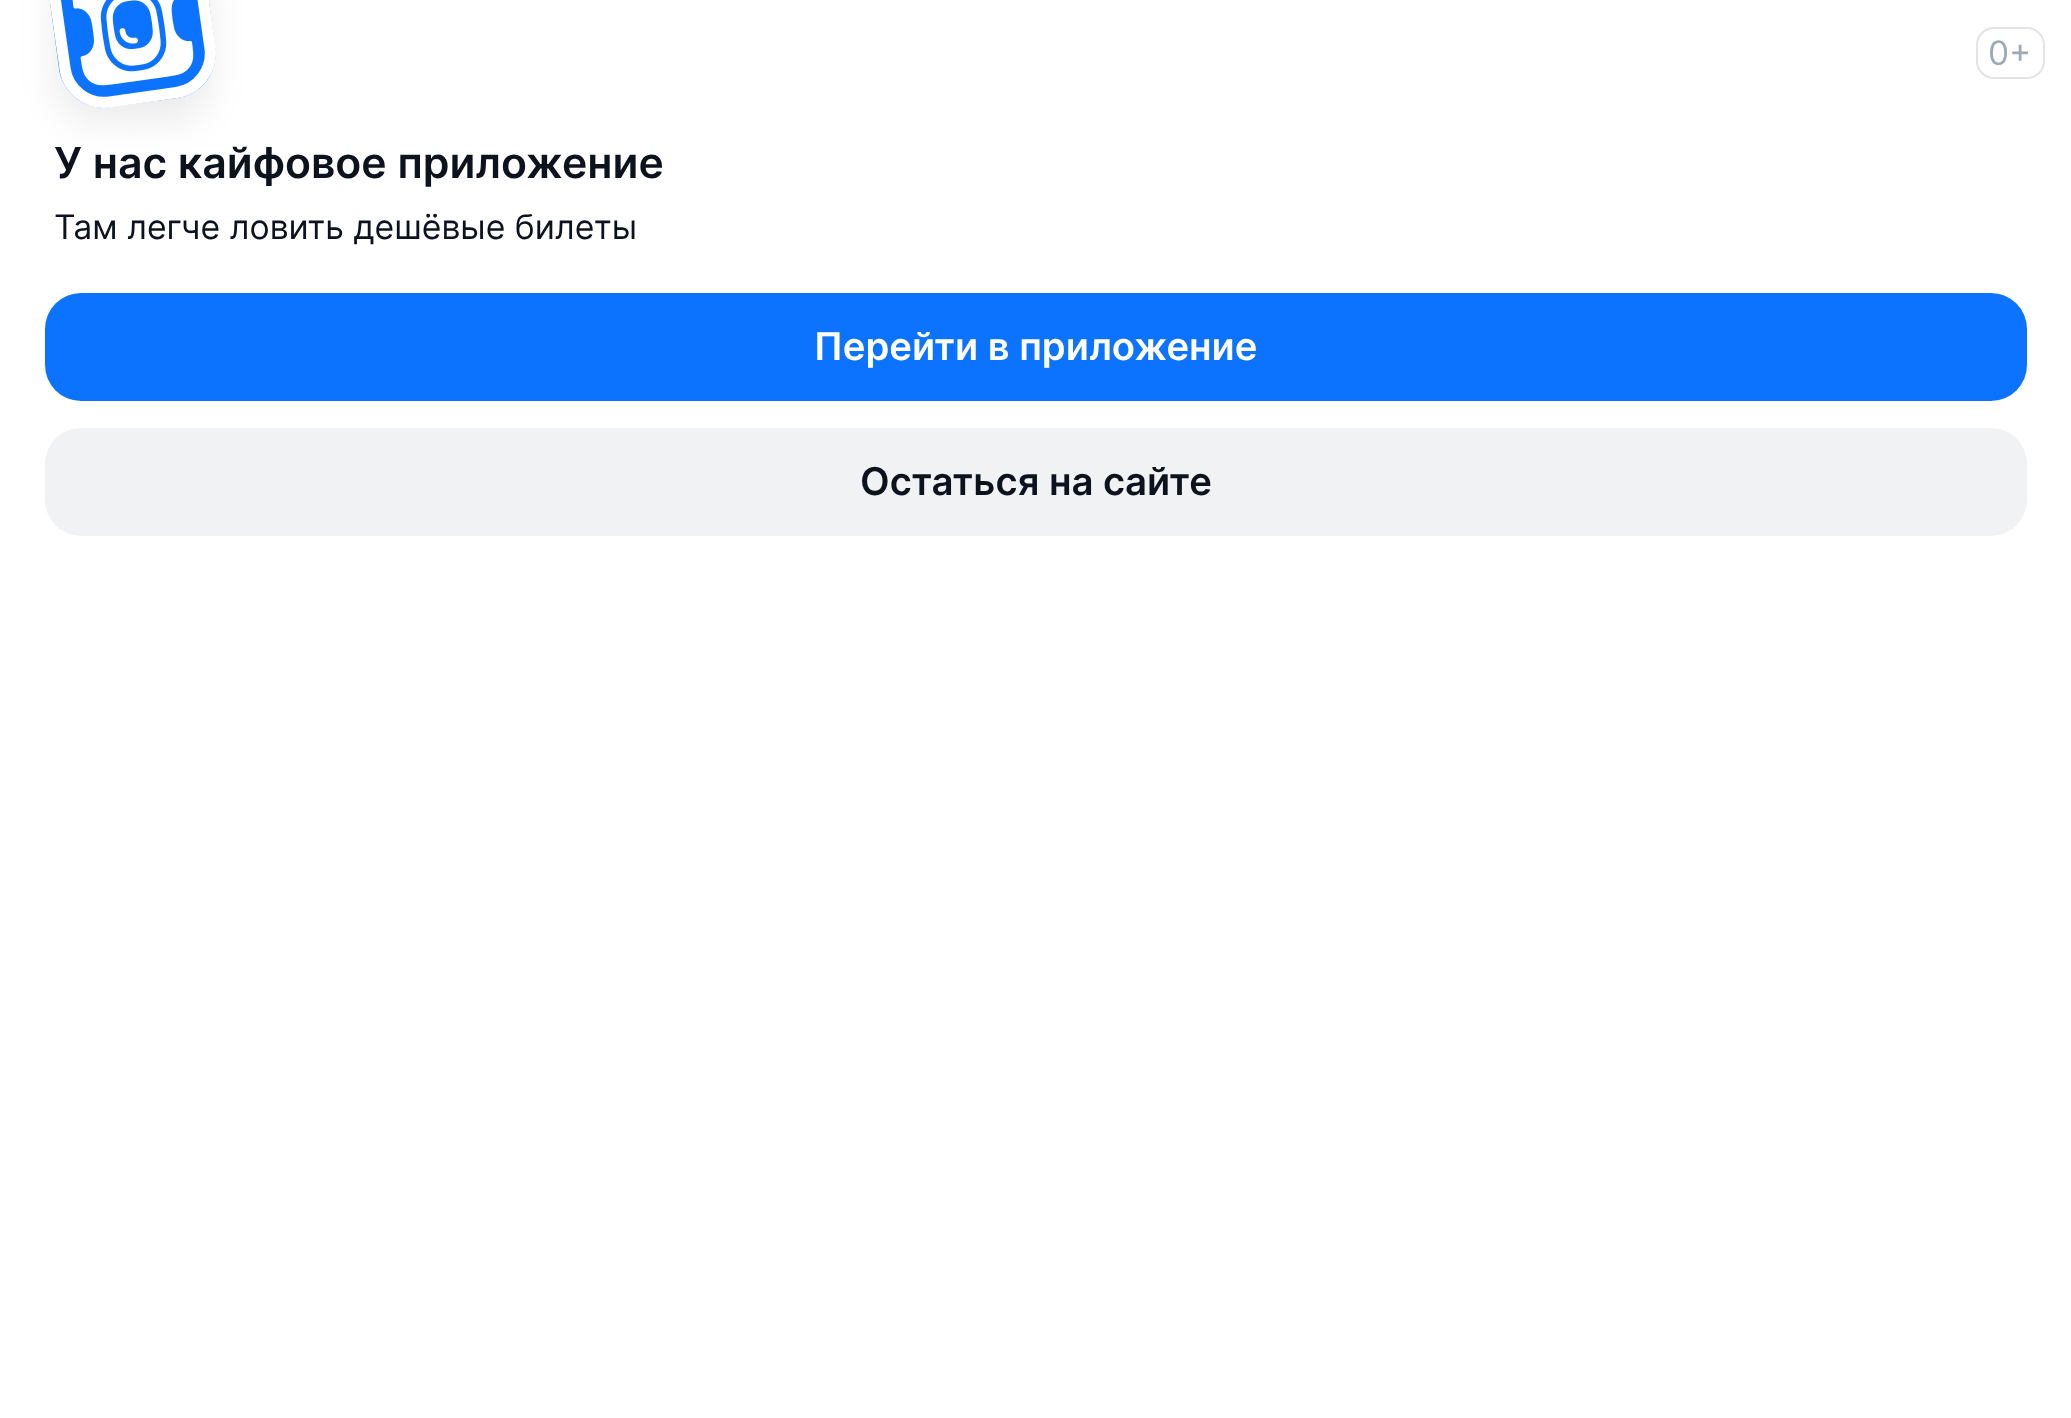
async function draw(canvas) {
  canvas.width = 2071;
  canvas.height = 1418;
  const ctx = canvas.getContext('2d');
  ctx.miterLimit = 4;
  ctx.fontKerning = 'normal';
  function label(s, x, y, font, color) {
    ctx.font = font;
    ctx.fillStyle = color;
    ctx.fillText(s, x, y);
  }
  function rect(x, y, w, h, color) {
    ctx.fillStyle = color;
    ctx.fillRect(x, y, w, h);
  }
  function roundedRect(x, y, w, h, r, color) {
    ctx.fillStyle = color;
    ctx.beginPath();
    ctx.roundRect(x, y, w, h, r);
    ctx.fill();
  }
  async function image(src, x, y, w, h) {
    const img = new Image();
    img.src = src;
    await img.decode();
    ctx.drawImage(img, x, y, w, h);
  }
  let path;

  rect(0, 0, 2071, 1418, '#fff');
  ctx.fillStyle = '#00000014';
  ctx.filter = 'blur(18px)';
  ctx.beginPath();
  ctx.roundRect(54, -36, 158, 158, 45);
  ctx.fill();
  ctx.filter = 'none';
  ctx.fillStyle = '#0c73fe';
  path = new Path2D('M88-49L155-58C180-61 203-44 206-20L215 47C219 72 202 95 177 98L110 107C86 111 63 94 59 69L50 2C47-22 64-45 88-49Z');
  ctx.fill(path);
  path = new Path2D('M89-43L156-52.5C177.5-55.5 197.5-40.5 200.5-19L210 48C213 69.5 198 89.5 176.5 92.5L109.5 102C88 105 68 90 65 68.5L55.5 1.5C52.5-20 67.5-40 89-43Z');
  ctx.strokeStyle = '#fff';
  ctx.lineWidth = 11.2;
  ctx.stroke(path);
  await image('assets/img1.png', 72, 0, 122, 86);
  ctx.beginPath();
  ctx.roundRect(1977, 28, 67, 50, 17);
  ctx.strokeStyle = '#e2e4e7';
  ctx.lineWidth = 2;
  ctx.stroke();
  label('0+', 1988, 65, '33.75px Inter', '#9ea9b7');
  label('У нас кайфовое приложение', 54, 178, '600 42.75px Inter', '#0c131d');
  label('Там легче ловить дешёвые билеты', 54, 239, '33.75px Inter', '#0c131d');
  roundedRect(45, 293, 1982, 108, 36, '#0c73fe');
  label('Перейти в приложение', 814, 360, '600 38.25px Inter', '#fff');
  roundedRect(45, 428, 1982, 108, 36, '#f1f2f4');
  label('Остаться на сайте', 860, 495, '600 38.25px Inter', '#0c131d');
}

draw(document.querySelector('canvas'));
